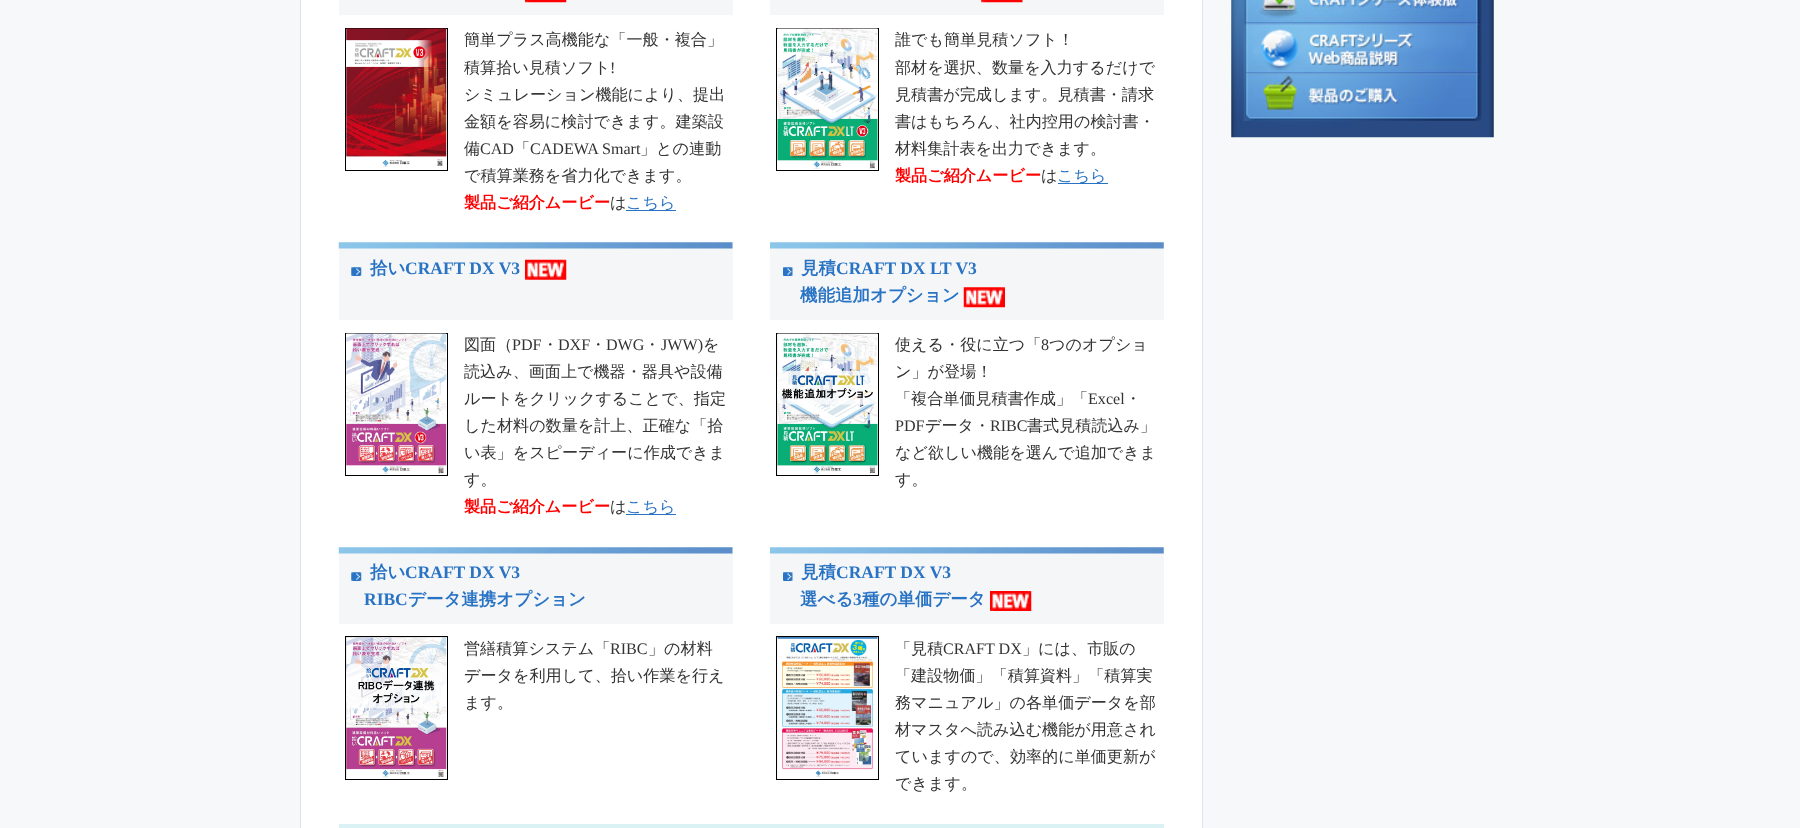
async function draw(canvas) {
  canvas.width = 1800;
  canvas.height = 828;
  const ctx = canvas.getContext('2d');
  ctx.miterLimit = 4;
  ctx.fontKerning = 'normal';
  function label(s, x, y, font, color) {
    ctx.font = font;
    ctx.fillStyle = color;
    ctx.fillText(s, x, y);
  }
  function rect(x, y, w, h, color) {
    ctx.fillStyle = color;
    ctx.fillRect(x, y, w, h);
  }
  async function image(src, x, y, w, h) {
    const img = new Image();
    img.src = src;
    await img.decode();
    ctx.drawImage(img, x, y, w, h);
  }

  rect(0, 0, 1800, 828, '#f6f8fa');
  ctx.fillStyle = '#fff';
  ctx.beginPath();
  ctx.rect(300.5, -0.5, 902, 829);
  ctx.fill();
  ctx.strokeStyle = '#dee3e9';
  ctx.stroke();
  rect(339, 0, 394, 15, '#f5f6f8');
  await image('assets/img1.png', 525, 0, 42, 3);
  ctx.strokeStyle = '#000';
  ctx.strokeRect(345.5, 28.5, 102, 142);
  await image('assets/img2.png', 346, 28, 101, 139);
  label('簡単プラス高機能な「一般・複合」', 464, 45, '500 16.1px WenQuanYi Zen Hei', '#333');
  label('積算拾い見積ソフト', 464, 73, '500 16.1px WenQuanYi Zen Hei', '#333');
  label('!', 610, 73, '16.1px Liberation Serif', '#333');
  label('シミュレーション機能により、提出', 464, 100, '500 16.1px WenQuanYi Zen Hei', '#333');
  label('金額を容易に検討できます。建築設', 464, 127, '500 16.1px WenQuanYi Zen Hei', '#333');
  label('備', 464, 154, '500 16.1px WenQuanYi Zen Hei', '#333');
  label('CAD', 480, 154, '16.1px Liberation Serif', '#333');
  label('「', 514, 154, '500 16.1px WenQuanYi Zen Hei', '#333');
  label('CADEWA Smart', 530, 154, '16.1px Liberation Serif', '#333');
  label('」との連動', 640, 154, '500 16.1px WenQuanYi Zen Hei', '#333');
  label('で積算業務を省力化できます。', 464, 181, '500 16.1px WenQuanYi Zen Hei', '#333');
  label('製品ご紹介ムービー', 464, 208, 'bold 16.1px WenQuanYi Zen Hei', '#f00');
  label('は', 610, 208, '500 16.1px WenQuanYi Zen Hei', '#333');
  rect(626, 210, 50, 1, '#2973c4');
  label('こちら', 626, 208, '500 16.1px WenQuanYi Zen Hei', '#2973c4');
  rect(770, 0, 394, 15, '#f5f6f8');
  await image('assets/img3.png', 981, 0, 42, 3);
  ctx.strokeRect(776.5, 28.5, 102, 142);
  await image('assets/img4.png', 777, 28, 101, 141);
  label('誰でも簡単見積ソフト！', 895, 45, '500 16.1px WenQuanYi Zen Hei', '#333');
  label('部材を選択、数量を入力するだけで', 895, 73, '500 16.1px WenQuanYi Zen Hei', '#333');
  label('見積書が完成します。見積書・請求', 895, 100, '500 16.1px WenQuanYi Zen Hei', '#333');
  label('書はもちろん、社内控用の検討書・', 895, 127, '500 16.1px WenQuanYi Zen Hei', '#333');
  label('材料集計表を出力できます。', 895, 154, '500 16.1px WenQuanYi Zen Hei', '#333');
  label('製品ご紹介ムービー', 895, 181, 'bold 16.1px WenQuanYi Zen Hei', '#f00');
  label('は', 1041, 181, '500 16.1px WenQuanYi Zen Hei', '#333');
  rect(1058, 183, 50, 1, '#2973c4');
  label('こちら', 1057, 181, '500 16.1px WenQuanYi Zen Hei', '#2973c4');
  rect(339, 243, 394, 77, '#f5f6f8');
  await image('assets/img5.png', 338, 242, 395, 7);
  await image('assets/img6.png', 351, 267, 11, 9);
  label('拾い', 370, 274, 'bold 17.5px WenQuanYi Zen Hei', '#2973c4');
  label('CRAFT DX V3', 405, 274, 'bold 17.5px Liberation Serif', '#2973c4');
  await image('assets/img7.png', 525, 259, 42, 21);
  ctx.strokeRect(345.5, 333.5, 102, 142);
  await image('assets/img8.png', 346, 333, 101, 141);
  label('図面（', 464, 350, '500 16.1px WenQuanYi Zen Hei', '#333');
  label('PDF', 512, 350, '16.1px Liberation Serif', '#333');
  label('・', 542, 350, '500 16.1px WenQuanYi Zen Hei', '#333');
  label('DXF', 558, 350, '16.1px Liberation Serif', '#333');
  label('・', 590, 350, '500 16.1px WenQuanYi Zen Hei', '#333');
  label('DWG', 606, 350, '16.1px Liberation Serif', '#333');
  label('・', 644, 350, '500 16.1px WenQuanYi Zen Hei', '#333');
  label('JWW)', 661, 350, '16.1px Liberation Serif', '#333');
  label('を', 703, 350, '500 16.1px WenQuanYi Zen Hei', '#333');
  label('読込み、画面上で機器・器具や設備', 464, 377, '500 16.1px WenQuanYi Zen Hei', '#333');
  label('ルートをクリックすることで、指定', 464, 404, '500 16.1px WenQuanYi Zen Hei', '#333');
  label('した材料の数量を計上、正確な「拾', 464, 431, '500 16.1px WenQuanYi Zen Hei', '#333');
  label('い表」をスピーディーに作成できま', 464, 458, '500 16.1px WenQuanYi Zen Hei', '#333');
  label('す。', 464, 485, '500 16.1px WenQuanYi Zen Hei', '#333');
  label('製品ご紹介ムービー', 464, 512, 'bold 16.1px WenQuanYi Zen Hei', '#f00');
  label('は', 610, 512, '500 16.1px WenQuanYi Zen Hei', '#333');
  rect(626, 514, 50, 1, '#2973c4');
  label('こちら', 626, 512, '500 16.1px WenQuanYi Zen Hei', '#2973c4');
  rect(770, 243, 394, 77, '#f5f6f8');
  await image('assets/img9.png', 770, 242, 394, 7);
  await image('assets/img10.png', 783, 267, 10, 9);
  label('見積', 801, 274, 'bold 17.5px WenQuanYi Zen Hei', '#2973c4');
  label('CRAFT DX LT V3', 836, 274, 'bold 17.5px Liberation Serif', '#2973c4');
  label('機能追加オプション', 800, 301, 'bold 17.5px WenQuanYi Zen Hei', '#2973c4');
  await image('assets/img11.png', 963, 287, 42, 21);
  ctx.strokeRect(776.5, 333.5, 102, 142);
  await image('assets/img12.png', 777, 333, 101, 142);
  label('使える・役に立つ「', 895, 350, '500 16.1px WenQuanYi Zen Hei', '#333');
  label('8', 1041, 350, '16.1px Liberation Serif', '#333');
  label('つのオプショ', 1049, 350, '500 16.1px WenQuanYi Zen Hei', '#333');
  label('ン」が登場！', 895, 377, '500 16.1px WenQuanYi Zen Hei', '#333');
  label('「複合単価見積書作成」「', 895, 404, '500 16.1px WenQuanYi Zen Hei', '#333');
  label('Excel', 1088, 404, '16.1px Liberation Serif', '#333');
  label('・', 1125, 404, '500 16.1px WenQuanYi Zen Hei', '#333');
  label('PDF', 895, 431, '16.1px Liberation Serif', '#333');
  label('データ・', 925, 431, '500 16.1px WenQuanYi Zen Hei', '#333');
  label('RIBC', 990, 431, '16.1px Liberation Serif', '#333');
  label('書式見積読込み」', 1027, 431, '500 16.1px WenQuanYi Zen Hei', '#333');
  label('など欲しい機能を選んで追加できま', 895, 458, '500 16.1px WenQuanYi Zen Hei', '#333');
  label('す。', 895, 485, '500 16.1px WenQuanYi Zen Hei', '#333');
  rect(339, 548, 394, 76, '#f5f6f8');
  await image('assets/img5.png', 338, 547, 395, 7);
  await image('assets/img6.png', 351, 572, 11, 9);
  label('拾い', 370, 578, 'bold 17.5px WenQuanYi Zen Hei', '#2973c4');
  label('CRAFT DX V3', 405, 578, 'bold 17.5px Liberation Serif', '#2973c4');
  label('RIBC', 364, 605, 'bold 17.5px Liberation Serif', '#2973c4');
  label('データ連携オプション', 408, 605, 'bold 17.5px WenQuanYi Zen Hei', '#2973c4');
  ctx.strokeRect(345.5, 636.5, 102, 143);
  await image('assets/img13.png', 346, 637, 101, 142);
  label('営繕積算システム「', 464, 654, '500 16.1px WenQuanYi Zen Hei', '#333');
  label('RIBC', 610, 654, '16.1px Liberation Serif', '#333');
  label('」の材料', 648, 654, '500 16.1px WenQuanYi Zen Hei', '#333');
  label('データを利用して、拾い作業を行え', 464, 681, '500 16.1px WenQuanYi Zen Hei', '#333');
  label('ます。', 464, 708, '500 16.1px WenQuanYi Zen Hei', '#333');
  rect(770, 548, 394, 76, '#f5f6f8');
  await image('assets/img9.png', 770, 547, 394, 7);
  await image('assets/img10.png', 783, 572, 10, 9);
  label('見積', 801, 578, 'bold 17.5px WenQuanYi Zen Hei', '#2973c4');
  label('CRAFT DX V3', 836, 578, 'bold 17.5px Liberation Serif', '#2973c4');
  label('選べる', 800, 605, 'bold 17.5px WenQuanYi Zen Hei', '#2973c4');
  label('3', 853, 605, 'bold 17.5px Liberation Serif', '#2973c4');
  label('種の単価データ', 862, 605, 'bold 17.5px WenQuanYi Zen Hei', '#2973c4');
  await image('assets/img14.png', 990, 591, 42, 20);
  ctx.strokeRect(776.5, 636.5, 102, 143);
  await image('assets/img15.png', 777, 637, 101, 141);
  label('「見積', 895, 654, '500 16.1px WenQuanYi Zen Hei', '#333');
  label('CRAFT DX', 943, 654, '16.1px Liberation Serif', '#333');
  label('」には、市販の', 1022, 654, '500 16.1px WenQuanYi Zen Hei', '#333');
  label('「建設物価」「積算資料」「積算実', 895, 681, '500 16.1px WenQuanYi Zen Hei', '#333');
  label('務マニュアル」の各単価データを部', 895, 708, '500 16.1px WenQuanYi Zen Hei', '#333');
  label('材マスタへ読み込む機能が用意され', 895, 735, '500 16.1px WenQuanYi Zen Hei', '#333');
  label('ていますので、効率的に単価更新が', 895, 762, '500 16.1px WenQuanYi Zen Hei', '#333');
  label('できます。', 895, 789, '500 16.1px WenQuanYi Zen Hei', '#333');
  ctx.strokeStyle = '#dbf2f4';
  ctx.lineWidth = 6;
  ctx.strokeRect(342, 827, 819, 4);
  await image('assets/img16.png', 1231, 0, 263, 138);
  await image('assets/img17.png', 1243, 0, 239, 25);
  await image('assets/img18.png', 1243, 24, 239, 51);
  await image('assets/img19.png', 1243, 74, 239, 47);
}

draw(document.querySelector('canvas'));
